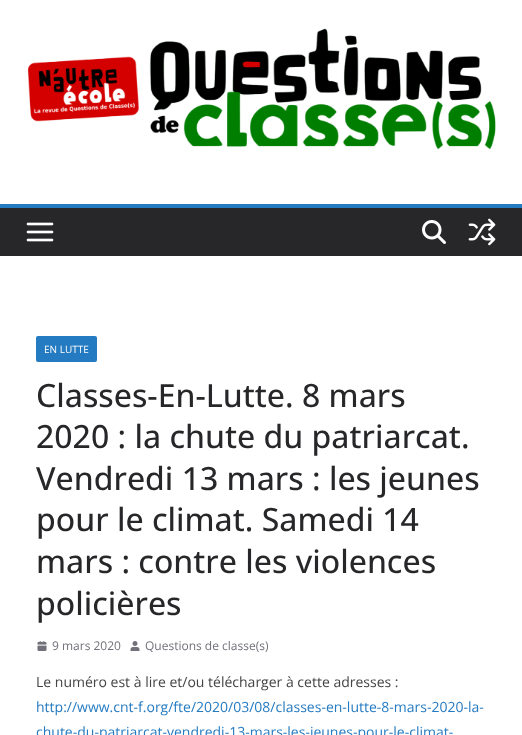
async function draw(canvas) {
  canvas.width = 522;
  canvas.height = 735;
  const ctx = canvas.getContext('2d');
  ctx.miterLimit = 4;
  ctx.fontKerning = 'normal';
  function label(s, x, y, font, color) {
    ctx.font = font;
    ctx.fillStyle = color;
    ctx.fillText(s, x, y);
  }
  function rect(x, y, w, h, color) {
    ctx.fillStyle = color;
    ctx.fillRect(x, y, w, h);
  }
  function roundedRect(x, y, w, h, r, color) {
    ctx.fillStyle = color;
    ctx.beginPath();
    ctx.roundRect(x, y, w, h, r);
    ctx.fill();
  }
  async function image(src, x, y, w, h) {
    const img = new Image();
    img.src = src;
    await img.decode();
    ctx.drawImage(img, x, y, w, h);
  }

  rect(0, 0, 522, 735, '#fff');
  await image('assets/img1.png', 27, 28, 469, 122);
  rect(0, 208, 522, 48, '#27272a');
  rect(0, 204, 522, 4, '#257bc1');
  await image('assets/img2.png', 26, 222, 28, 20);
  await image('assets/img3.png', 422, 220, 24, 24);
  await image('assets/img4.png', 468, 218, 28, 28);
  roundedRect(36, 336, 61, 26, 2, '#257bc1');
  label('EN LUTTE', 44, 353, '10px Open Sans', '#fff');
  label('Classes-En-Lutte. 8 mars', 36, 407, '500 32px Open Sans', '#27272a');
  label('2020 : la chute du patriarcat.', 36, 448, '500 32px Open Sans', '#27272a');
  label('Vendredi 13 mars : les jeunes', 36, 490, '500 32px Open Sans', '#27272a');
  label('pour le climat. Samedi 14', 36, 531, '500 32px Open Sans', '#27272a');
  label('mars : contre les violences', 36, 573, '500 32px Open Sans', '#27272a');
  label('policières', 36, 615, '500 32px Open Sans', '#27272a');
  await image('assets/img5.png', 37, 641, 10, 10);
  label('9 mars 2020', 52, 650, '12px Open Sans', '#71717a');
  await image('assets/img6.png', 130, 641, 10, 10);
  label('Questions de classe(s)', 145, 650, '12px Open Sans', '#71717a');
  label('Le numéro est à lire et/ou télécharger à cette adresses :', 36, 687, '14px Open Sans', '#444');
  label('http://www.cnt-f.org/fte/2020/03/08/classes-en-lutte-8-mars-2020-la-', 36, 712, '14px Open Sans', '#257bc1');
  label('chute-du-patriarcat-vendredi-13-mars-les-jeunes-pour-le-climat-', 36, 737, '14px Open Sans', '#257bc1');
}

draw(document.querySelector('canvas'));
